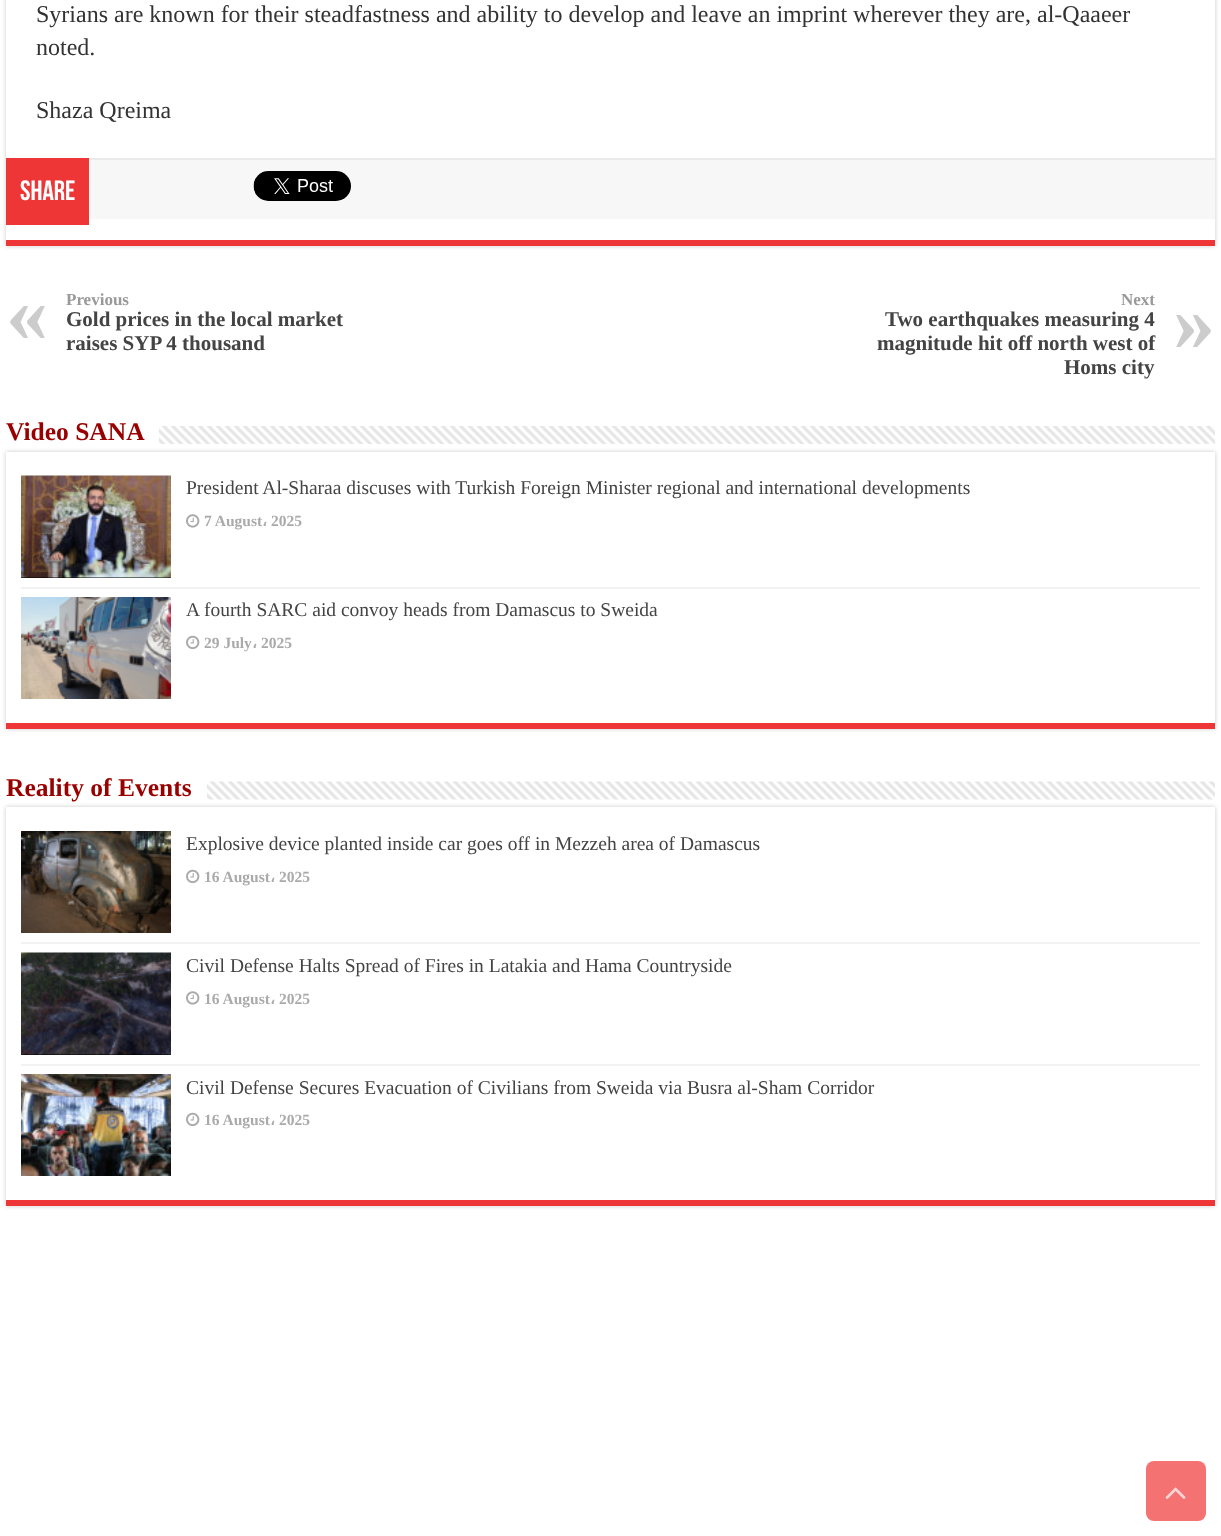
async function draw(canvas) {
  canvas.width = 1221;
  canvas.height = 1536;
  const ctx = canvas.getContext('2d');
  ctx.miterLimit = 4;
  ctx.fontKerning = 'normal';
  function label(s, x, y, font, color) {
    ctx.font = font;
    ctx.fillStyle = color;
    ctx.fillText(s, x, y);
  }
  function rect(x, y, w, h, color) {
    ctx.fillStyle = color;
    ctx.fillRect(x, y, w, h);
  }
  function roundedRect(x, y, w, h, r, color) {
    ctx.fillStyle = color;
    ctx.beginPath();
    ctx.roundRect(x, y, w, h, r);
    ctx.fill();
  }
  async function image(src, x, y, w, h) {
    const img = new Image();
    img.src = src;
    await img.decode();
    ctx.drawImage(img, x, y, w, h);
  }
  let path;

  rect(0, 0, 1221, 1536, '#fff');
  ctx.save();
  path = new Path2D('M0 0H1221V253H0ZM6-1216H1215V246H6Z');
  ctx.clip(path, 'evenodd');
  ctx.fillStyle = '#cacaca';
  ctx.filter = 'blur(2px)';
  ctx.beginPath();
  ctx.rect(6, -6, 1209, 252);
  ctx.fill();
  ctx.filter = 'none';
  ctx.restore();
  rect(6, 240, 1209, 6, '#ef3636');
  label('Syrians are known for their steadfastness and ability to develop and leave an imprint wherever they are, al-Qaaeer', 36, 22, '24px Liberation Serif', '#333');
  label('noted.', 36, 55, '24px Liberation Serif', '#333');
  label('Shaza Qreima', 36, 118, '24px Liberation Serif', '#333');
  rect(89, 160, 1126, 59, '#f7f7f7');
  rect(89, 158, 1126, 2, '#eaeaea');
  rect(6, 158, 83, 67, '#ef3636');
  label('Share', 20, 200, 'bold 28px Bebas Neue', '#fff');
  await image('assets/img1.png', 253, 171, 98, 30);
  label('Previous', 66, 305, 'bold 17px Liberation Serif', '#999');
  label('«', 6, 341, 'bold 84px Liberation Serif', '#ccc');
  label('Gold prices in the local market', 66, 326, 'bold 21px Liberation Serif', '#444');
  label('raises SYP 4 thousand', 66, 350, 'bold 21px Liberation Serif', '#444');
  label('Next', 1121, 305, 'bold 17px Liberation Serif', '#999');
  label('Two earthquakes measuring 4', 885, 326, 'bold 21px Liberation Serif', '#444');
  label('»', 1173, 350, 'bold 84px Liberation Serif', '#ccc');
  label('magnitude hit off north west of', 877, 350, 'bold 21px Liberation Serif', '#444');
  label('Homs city', 1064, 374, 'bold 21px Liberation Serif', '#444');
  label('Video SANA', 6, 440, 'bold 25.5px Liberation Serif', '#900');
  await image('assets/img2.png', 159, 426, 1056, 18);
  ctx.save();
  path = new Path2D('M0 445H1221V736H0ZM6 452H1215V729H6Z');
  ctx.clip(path, 'evenodd');
  ctx.fillStyle = '#cacaca';
  ctx.filter = 'blur(2px)';
  ctx.beginPath();
  ctx.rect(6, 452, 1209, 277);
  ctx.fill();
  ctx.filter = 'none';
  ctx.restore();
  rect(6, 723, 1209, 6, '#ef3636');
  rect(21, 587, 1179, 2, '#f2f2f2');
  rect(21, 577, 150, 1, '#000');
  await image('assets/img3.png', 21, 475, 150, 103);
  label('President Al-Sharaa discuses with Turkish Foreign Minister regional and international developments', 186, 494, '19.5px Liberation Serif', '#444');
  await image('assets/img4.png', 186, 514, 14, 14);
  label('7 August', 204, 526, 'bold 15.5px Liberation Serif', '#aaa');
  label('،', 262, 526, 'bold 15.5px DejaVu Sans', '#aaa');
  label('2025', 271, 526, 'bold 15.5px Liberation Serif', '#aaa');
  await image('assets/img5.png', 21, 597, 150, 102);
  label('A fourth SARC aid convoy heads from Damascus to Sweida', 186, 616, '19.5px Liberation Serif', '#444');
  await image('assets/img6.png', 186, 635, 14, 15);
  label('29 July', 204, 648, 'bold 15.5px Liberation Serif', '#aaa');
  label('،', 252, 648, 'bold 15.5px DejaVu Sans', '#aaa');
  label('2025', 261, 648, 'bold 15.5px Liberation Serif', '#aaa');
  ctx.save();
  path = new Path2D('M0 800H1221V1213H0ZM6 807H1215V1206H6Z');
  ctx.clip(path, 'evenodd');
  ctx.fillStyle = '#cacaca';
  ctx.filter = 'blur(2px)';
  ctx.beginPath();
  ctx.rect(6, 807, 1209, 399);
  ctx.fill();
  ctx.filter = 'none';
  ctx.restore();
  label('Reality of Events', 6, 796, 'bold 25.5px Liberation Serif', '#900');
  await image('assets/img7.png', 207, 781, 1008, 19);
  rect(6, 1200, 1209, 6, '#ef3636');
  rect(21, 942, 1179, 2, '#f2f2f2');
  await image('assets/img8.png', 21, 831, 150, 102);
  label('Explosive device planted inside car goes off in Mezzeh area of Damascus', 186, 850, '19.5px Liberation Serif', '#444');
  await image('assets/img6.png', 186, 869, 14, 15);
  label('16 August', 204, 882, 'bold 15.5px Liberation Serif', '#aaa');
  label('،', 270, 882, 'bold 15.5px DejaVu Sans', '#aaa');
  label('2025', 279, 882, 'bold 15.5px Liberation Serif', '#aaa');
  rect(21, 1064, 1179, 2, '#f2f2f2');
  rect(21, 1054, 150, 1, '#000');
  await image('assets/img9.png', 21, 952, 150, 103);
  label('Civil Defense Halts Spread of Fires in Latakia and Hama Countryside', 186, 972, '19.5px Liberation Serif', '#444');
  await image('assets/img4.png', 186, 991, 14, 14);
  label('16 August', 204, 1004, 'bold 15.5px Liberation Serif', '#aaa');
  label('،', 270, 1004, 'bold 15.5px DejaVu Sans', '#aaa');
  label('2025', 279, 1004, 'bold 15.5px Liberation Serif', '#aaa');
  await image('assets/img10.png', 21, 1074, 150, 102);
  label('Civil Defense Secures Evacuation of Civilians from Sweida via Busra al-Sham Corridor', 186, 1094, '19.5px Liberation Serif', '#444');
  await image('assets/img6.png', 186, 1112, 14, 15);
  label('16 August', 204, 1125, 'bold 15.5px Liberation Serif', '#aaa');
  label('،', 270, 1125, 'bold 15.5px DejaVu Sans', '#aaa');
  label('2025', 279, 1125, 'bold 15.5px Liberation Serif', '#aaa');
  roundedRect(1146, 1461, 60, 60, 8, '#f47272');
  await image('assets/img11.png', 1165, 1487, 21, 12);
}

draw(document.querySelector('canvas'));
